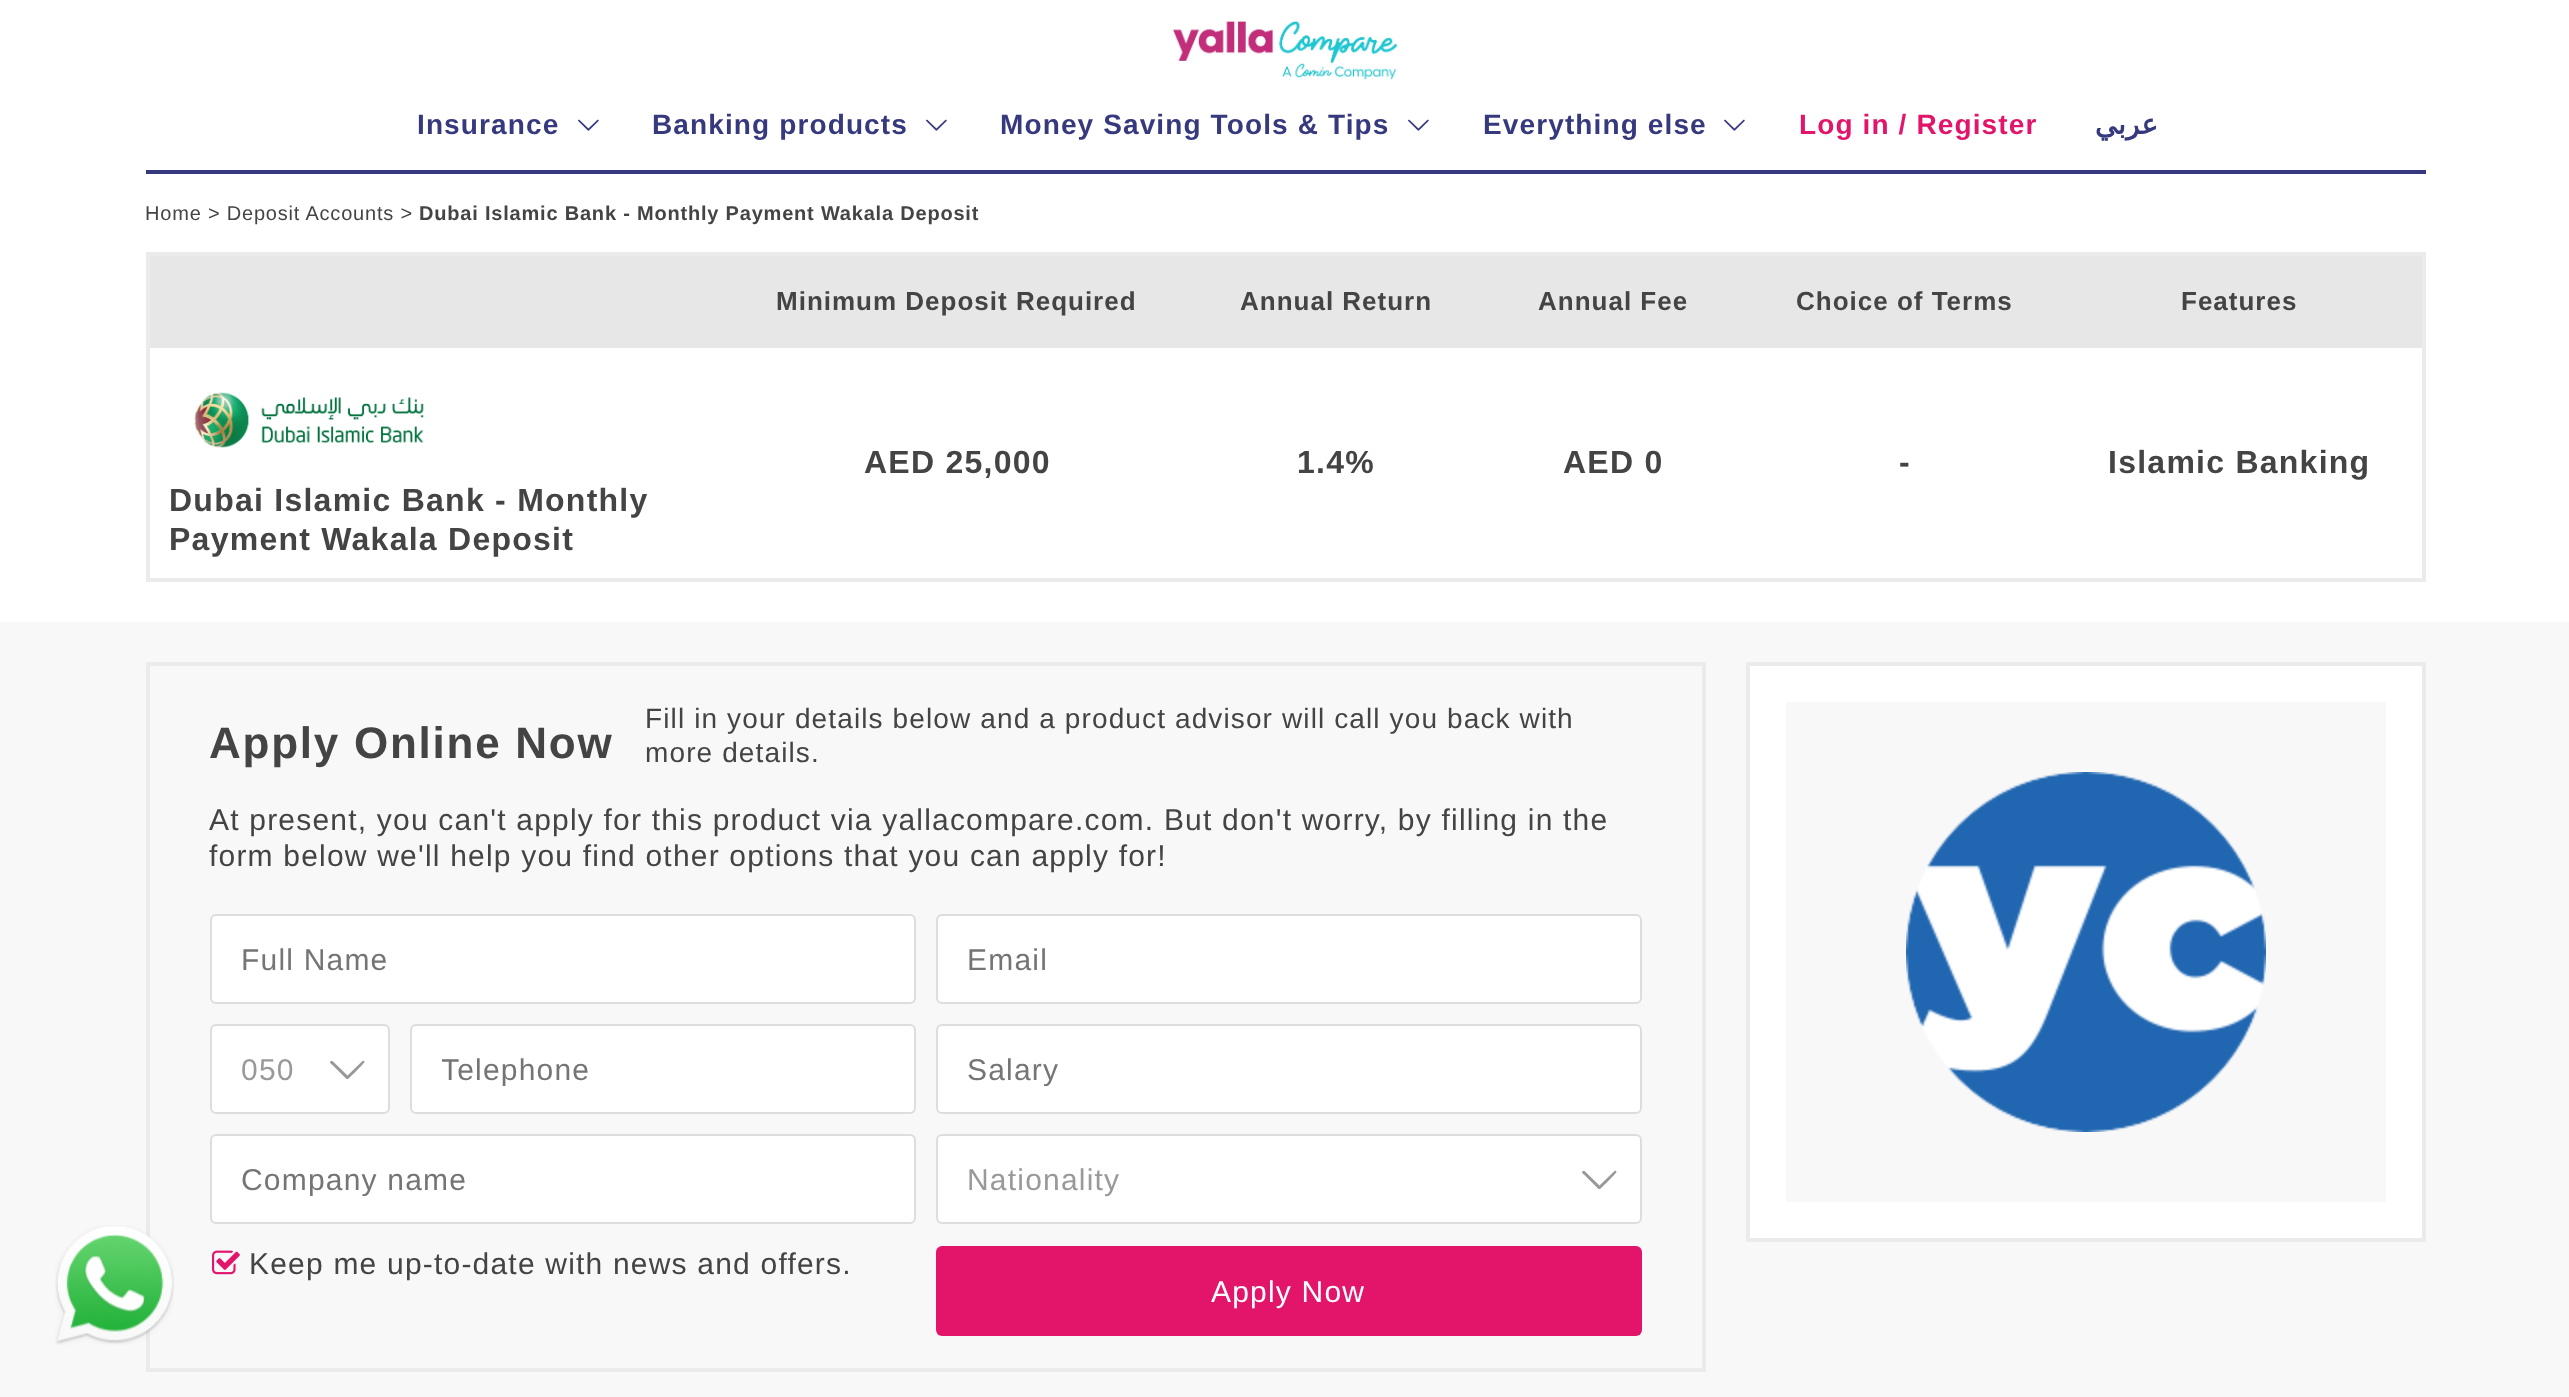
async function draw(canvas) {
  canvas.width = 2569;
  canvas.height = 1397;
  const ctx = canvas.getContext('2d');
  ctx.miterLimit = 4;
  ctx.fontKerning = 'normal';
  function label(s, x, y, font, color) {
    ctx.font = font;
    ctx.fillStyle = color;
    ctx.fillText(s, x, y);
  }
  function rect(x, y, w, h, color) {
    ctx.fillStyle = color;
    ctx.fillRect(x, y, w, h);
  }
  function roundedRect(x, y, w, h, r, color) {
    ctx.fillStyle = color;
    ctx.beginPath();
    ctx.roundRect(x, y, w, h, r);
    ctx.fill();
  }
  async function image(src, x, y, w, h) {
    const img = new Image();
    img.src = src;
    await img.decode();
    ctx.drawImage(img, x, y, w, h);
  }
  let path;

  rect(0, 0, 2569, 1397, '#fff');
  await image('assets/img1.png', 1173, 21, 225, 59);
  ctx.letterSpacing = '1.12px';
  label('Insurance', 417, 134, 'bold 28px Liberation Sans', '#36397d');
  await image('assets/img2.png', 578, 119, 21, 12);
  label('Banking products', 652, 134, 'bold 28px Liberation Sans', '#36397d');
  await image('assets/img2.png', 926, 119, 21, 12);
  label('Money Saving Tools & Tips', 1000, 134, 'bold 28px Liberation Sans', '#36397d');
  await image('assets/img2.png', 1408, 119, 21, 12);
  label('Everything else', 1483, 134, 'bold 28px Liberation Sans', '#36397d');
  await image('assets/img2.png', 1724, 119, 21, 12);
  label('Log in / Register', 1799, 134, 'bold 28px Liberation Sans', '#e2156b');
  ctx.direction = 'rtl';
  label('عربي', 2158, 134, 'bold 28px DejaVu Sans', '#36397d');
  rect(146, 170, 2280, 4, '#36397d');
  rect(0, 622, 2569, 775, '#f8f8f8');
  ctx.strokeStyle = '#ebebeb';
  ctx.lineWidth = 4;
  ctx.strokeRect(148, 664, 1556, 706);
  await image('assets/img3.png', 55, 1225, 119, 120);
  ctx.letterSpacing = '0.8px';
  ctx.direction = 'ltr';
  label('Home > Deposit Accounts >', 145, 220, '20px Liberation Sans', '#444');
  label('Dubai Islamic Bank - Monthly Payment Wakala Deposit', 419, 220, 'bold 20px Liberation Sans', '#444');
  ctx.strokeRect(148, 254, 2276, 326);
  rect(150, 256, 2272, 92, '#e7e7e7');
  ctx.letterSpacing = '1px';
  label('Minimum Deposit Required', 776, 310, 'bold 26px Liberation Sans', '#444');
  label('Annual Return', 1240, 310, 'bold 26px Liberation Sans', '#444');
  label('Annual Fee', 1538, 310, 'bold 26px Liberation Sans', '#444');
  label('Choice of Terms', 1796, 310, 'bold 26px Liberation Sans', '#444');
  label('Features', 2181, 310, 'bold 26px Liberation Sans', '#444');
  ctx.letterSpacing = '1.25px';
  label('AED 25,000', 864, 473, 'bold 32px Liberation Sans', '#444');
  label('1.4%', 1297, 473, 'bold 32px Liberation Sans', '#444');
  label('AED 0', 1563, 473, 'bold 32px Liberation Sans', '#444');
  label('-', 1899, 473, 'bold 32px Liberation Sans', '#444');
  label('Islamic Banking', 2108, 473, 'bold 32px Liberation Sans', '#444');
  await image('assets/img4.png', 194, 392, 230, 56);
  label('Dubai Islamic Bank - Monthly', 169, 511, 'bold 32px Liberation Sans', '#444');
  label('Payment Wakala Deposit', 169, 550, 'bold 32px Liberation Sans', '#444');
  ctx.letterSpacing = '1.75px';
  label('Apply Online Now', 209, 758, 'bold 44px Liberation Sans', '#444');
  ctx.letterSpacing = '1.12px';
  label('Fill in your details below and a product advisor will call you back with', 645, 728, '28px Liberation Sans', '#444');
  label('more details.', 645, 762, '28px Liberation Sans', '#444');
  ctx.letterSpacing = '1.2px';
  label('At present, you can\'t apply for this product via yallacompare.com. But don\'t worry, by filling in the', 209, 830, '30px Liberation Sans', '#444');
  label('form below we\'ll help you find other options that you can apply for!', 209, 866, '30px Liberation Sans', '#444');
  ctx.fillStyle = '#fff';
  ctx.beginPath();
  ctx.roundRect(211, 915, 704, 88, 5);
  ctx.fill();
  ctx.strokeStyle = '#ddd';
  ctx.lineWidth = 2;
  ctx.stroke();
  label('Full Name', 241, 970, '30px Liberation Sans', '#757575');
  ctx.fillStyle = '#fff';
  ctx.beginPath();
  ctx.roundRect(937, 915, 704, 88, 5);
  ctx.fill();
  ctx.stroke();
  label('Email', 967, 970, '30px Liberation Sans', '#757575');
  ctx.fillStyle = '#fff';
  ctx.beginPath();
  ctx.roundRect(211, 1025, 178, 88, 5);
  ctx.fill();
  ctx.stroke();
  label('050', 241, 1080, '30px Liberation Sans', '#999');
  path = new Path2D('M332.5 1061L347.5 1075.5L362.5 1061C363 1060.5 364.5 1061 364.5 1062C364.5 1063 349.5 1078 348 1079H346.5L333 1065.5C333 1065.5 327.5 1061.5 331.5 1061Z');
  ctx.fill(path);
  ctx.fillStyle = '#fff';
  ctx.beginPath();
  ctx.roundRect(411, 1025, 504, 88, 5);
  ctx.fill();
  ctx.stroke();
  ctx.save();
  ctx.beginPath();
  ctx.rect(442, 1052, 412, 34);
  ctx.clip();
  label('Telephone', 441, 1080, '30px Liberation Sans', '#757575');
  ctx.restore();
  ctx.beginPath();
  ctx.roundRect(937, 1025, 704, 88, 5);
  ctx.fill();
  ctx.stroke();
  ctx.save();
  ctx.beginPath();
  ctx.rect(968, 1052, 612, 34);
  ctx.clip();
  label('Salary', 967, 1080, '30px Liberation Sans', '#757575');
  ctx.restore();
  ctx.beginPath();
  ctx.roundRect(211, 1135, 704, 88, 5);
  ctx.fill();
  ctx.stroke();
  ctx.save();
  ctx.beginPath();
  ctx.rect(242, 1162, 642, 34);
  ctx.clip();
  label('Company name', 241, 1190, '30px Liberation Sans', '#757575');
  ctx.restore();
  ctx.beginPath();
  ctx.roundRect(937, 1135, 704, 88, 5);
  ctx.fill();
  ctx.stroke();
  label('Nationality', 967, 1190, '30px Liberation Sans', '#999');
  path = new Path2D('M1584.5 1171L1599.5 1185.5L1614.5 1171C1615 1170.5 1616.5 1171 1616.5 1172C1616.5 1173 1601.5 1188 1600 1189H1598.5L1585 1175.5C1585 1175.5 1579.5 1171.5 1583.5 1171Z');
  ctx.fill(path);
  await image('assets/img5.png', 212, 1250, 28, 25);
  label('Keep me up-to-date with news and offers.', 249, 1274, '30px Liberation Sans', '#444');
  roundedRect(936, 1246, 706, 90, 6, '#e2156b');
  label('Apply Now', 1211, 1302, '30px Liberation Sans', '#fff');
  ctx.beginPath();
  ctx.rect(1748, 664, 676, 576);
  ctx.fill();
  ctx.strokeStyle = '#ebebeb';
  ctx.lineWidth = 4;
  ctx.stroke();
  rect(1786, 702, 600, 500, '#f8f8f8');
  await image('assets/img6.png', 1906, 772, 360, 360);
}

draw(document.querySelector('canvas'));
